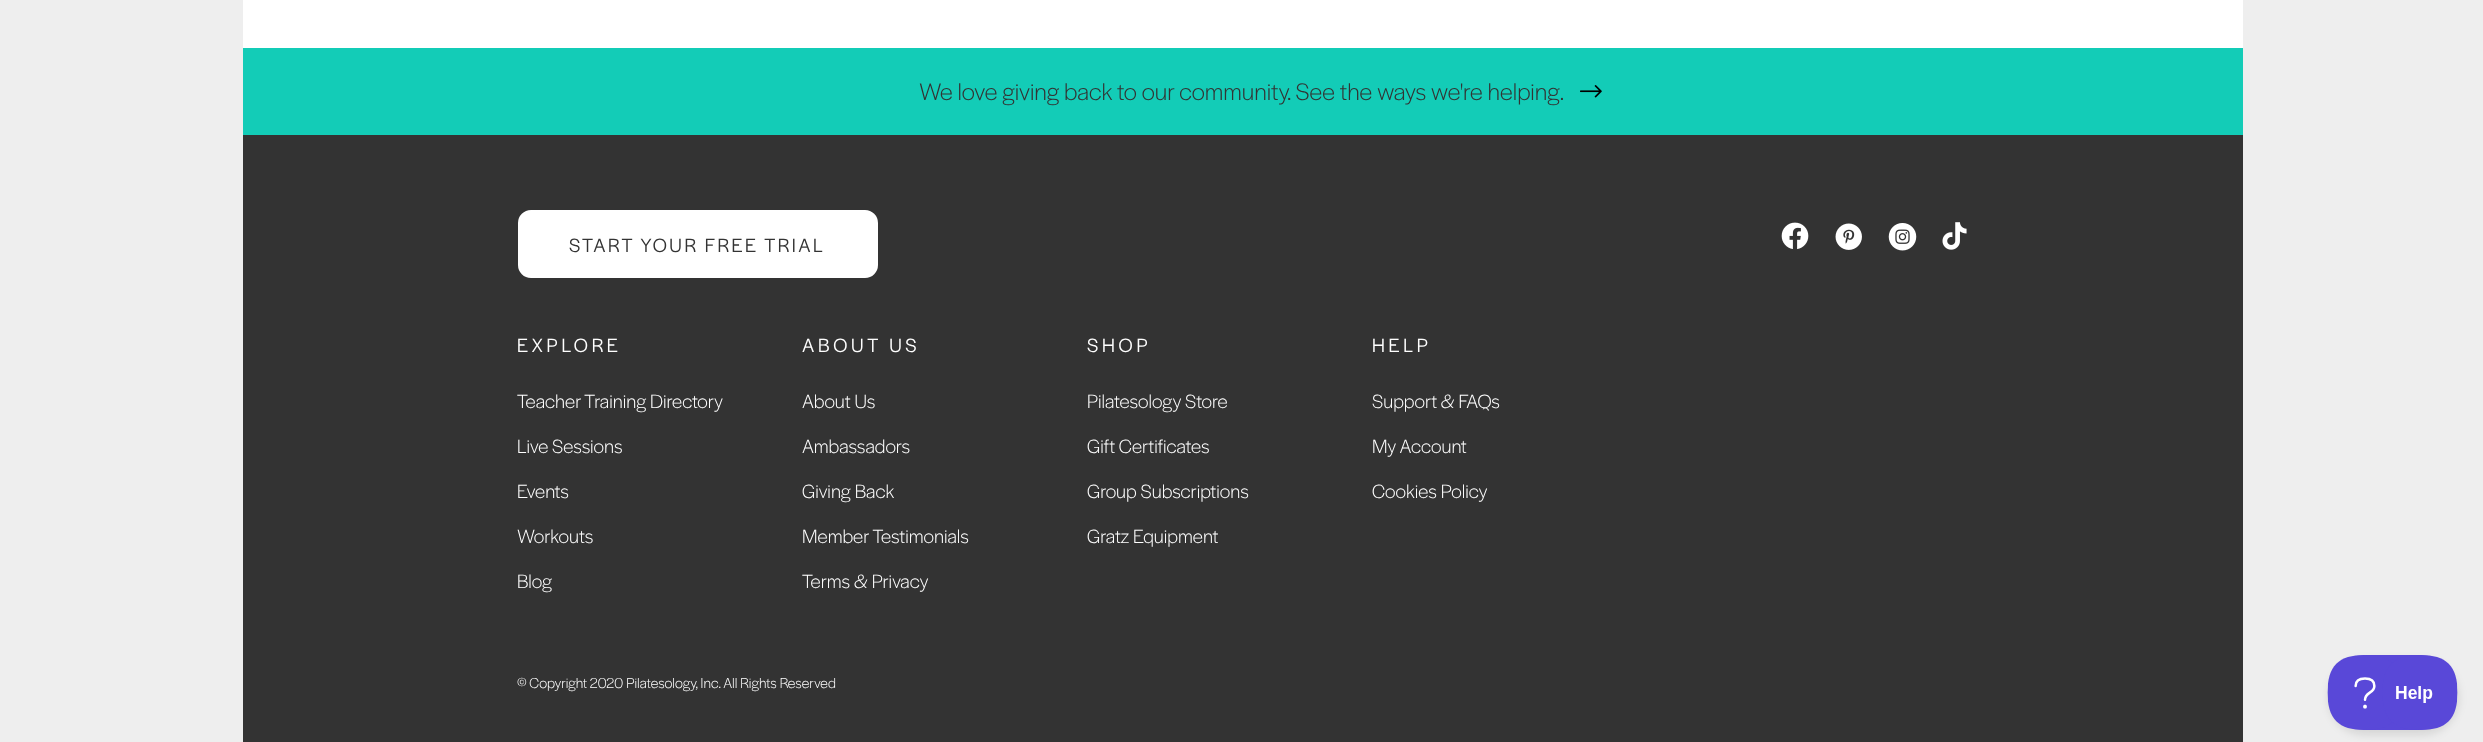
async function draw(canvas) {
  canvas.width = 2483;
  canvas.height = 742;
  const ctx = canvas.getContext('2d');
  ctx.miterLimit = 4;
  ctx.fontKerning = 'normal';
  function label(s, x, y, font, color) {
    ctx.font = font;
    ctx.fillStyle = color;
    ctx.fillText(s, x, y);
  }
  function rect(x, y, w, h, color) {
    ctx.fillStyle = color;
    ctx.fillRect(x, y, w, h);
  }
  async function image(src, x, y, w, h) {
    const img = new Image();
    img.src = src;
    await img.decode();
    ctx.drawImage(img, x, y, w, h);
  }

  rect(0, 0, 2483, 742, '#eee');
  rect(243, 0, 2000, 48, '#fff');
  rect(243, 48, 2000, 87, '#13ccb7');
  label('We love giving back to our community. See the ways we\'re helping.', 919, 100, '300 25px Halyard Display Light', '#333');
  await image('assets/img1.png', 1580, 85, 22, 13);
  rect(243, 135, 2000, 607, '#333');
  ctx.fillStyle = '#fff';
  ctx.beginPath();
  ctx.roundRect(519.5, 211.5, 357, 65, 11.5);
  ctx.fill();
  ctx.strokeStyle = '#fff';
  ctx.lineWidth = 3;
  ctx.stroke();
  ctx.letterSpacing = '2.5px';
  label('START YOUR FREE TRIAL', 569, 252, '20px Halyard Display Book', '#333');
  await image('assets/img2.png', 1781, 222, 28, 27);
  await image('assets/img3.png', 1835, 223, 27, 27);
  await image('assets/img4.png', 1888, 223, 29, 28);
  await image('assets/img5.png', 1942, 222, 25, 28);
  ctx.letterSpacing = '3.75px';
  label('EXPLORE', 517, 352, '20px Halyard Display Book', '#fff');
  ctx.letterSpacing = '0px';
  label('Teacher Training Directory', 517, 408, '300 20px Halyard Display Light', '#fff');
  label('Live Sessions', 517, 453, '300 20px Halyard Display Light', '#fff');
  label('Events', 517, 498, '300 20px Halyard Display Light', '#fff');
  label('Workouts', 517, 543, '300 20px Halyard Display Light', '#fff');
  label('Blog', 517, 588, '300 20px Halyard Display Light', '#fff');
  ctx.letterSpacing = '3.75px';
  label('ABOUT US', 802, 352, '20px Halyard Display Book', '#fff');
  ctx.letterSpacing = '0px';
  label('About Us', 802, 408, '300 20px Halyard Display Light', '#fff');
  label('Ambassadors', 802, 453, '300 20px Halyard Display Light', '#fff');
  label('Giving Back', 802, 498, '300 20px Halyard Display Light', '#fff');
  label('Member Testimonials', 802, 543, '300 20px Halyard Display Light', '#fff');
  label('Terms & Privacy', 802, 588, '300 20px Halyard Display Light', '#fff');
  ctx.letterSpacing = '3.75px';
  label('SHOP', 1087, 352, '20px Halyard Display Book', '#fff');
  ctx.letterSpacing = '0px';
  label('Pilatesology Store', 1087, 408, '300 20px Halyard Display Light', '#fff');
  label('Gift Certificates', 1087, 453, '300 20px Halyard Display Light', '#fff');
  label('Group Subscriptions', 1087, 498, '300 20px Halyard Display Light', '#fff');
  label('Gratz Equipment', 1087, 543, '300 20px Halyard Display Light', '#fff');
  ctx.letterSpacing = '3.75px';
  label('HELP', 1372, 352, '20px Halyard Display Book', '#fff');
  ctx.letterSpacing = '0px';
  label('Support & FAQs', 1372, 408, '300 20px Halyard Display Light', '#fff');
  label('My Account', 1372, 453, '300 20px Halyard Display Light', '#fff');
  label('Cookies Policy', 1372, 498, '300 20px Halyard Display Light', '#fff');
  label('© Copyright 2020 Pilatesology, Inc. All Rights Reserved', 517, 688, '300 15px Halyard Display Light', '#fff');
  ctx.fillStyle = '#0000001a';
  ctx.filter = 'blur(4.5px)';
  ctx.beginPath();
  ctx.roundRect(2328, 660, 131, 75, 37.5);
  ctx.fill();
  ctx.filter = 'none';
  await image('assets/img6.png', 2327, 655, 131, 75);
}

draw(document.querySelector('canvas'));
